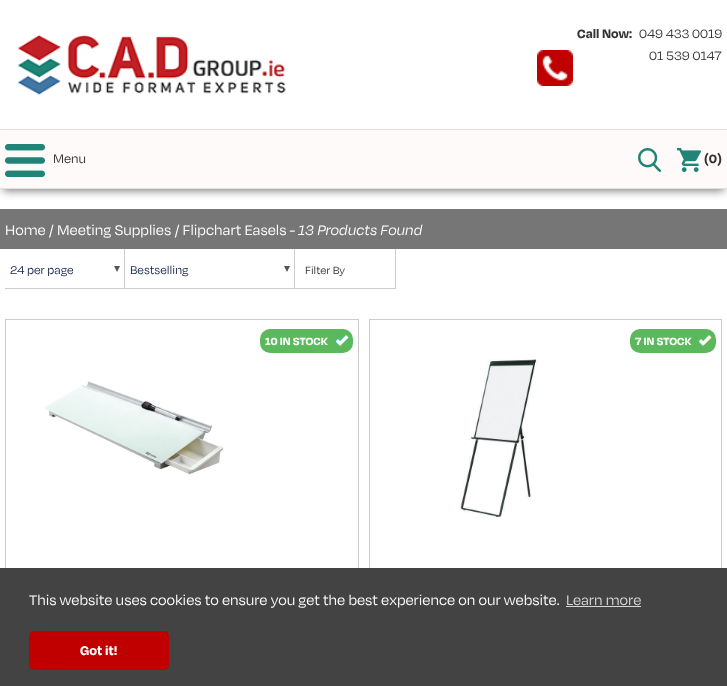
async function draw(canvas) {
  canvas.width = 727;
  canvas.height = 686;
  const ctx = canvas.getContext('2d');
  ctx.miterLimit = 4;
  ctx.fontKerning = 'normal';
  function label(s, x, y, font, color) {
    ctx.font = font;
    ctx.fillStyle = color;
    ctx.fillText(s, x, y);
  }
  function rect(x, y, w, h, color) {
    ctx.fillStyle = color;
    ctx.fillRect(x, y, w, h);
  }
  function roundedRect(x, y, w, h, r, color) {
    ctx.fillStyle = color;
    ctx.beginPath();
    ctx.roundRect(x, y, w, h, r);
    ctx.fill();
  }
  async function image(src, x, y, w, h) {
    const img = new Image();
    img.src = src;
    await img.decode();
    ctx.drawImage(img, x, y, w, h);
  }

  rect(0, 0, 727, 686, '#fff');
  await image('assets/img1.png', 17, 34, 269, 61);
  label('Call Now:', 577, 38, 'bold 14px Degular', '#333');
  label('049 433 0019', 639, 38, '14px Degular', '#333');
  label('01 539 0147', 649, 60, '14px Degular', '#333');
  await image('assets/img2.png', 537, 50, 36, 36);
  ctx.fillStyle = '#0000007d';
  ctx.filter = 'blur(4px)';
  ctx.beginPath();
  ctx.rect(3, 137, 721, 54);
  ctx.fill();
  ctx.filter = 'none';
  rect(0, 130, 727, 58, '#fffafa');
  rect(0, 129, 727, 1, '#e1e1e1');
  rect(0, 188, 727, 1, '#e1e1e1');
  await image('assets/img3.png', 5, 144, 40, 33);
  label('Menu', 53, 163, '14px Degular', '#333');
  await image('assets/img4.png', 638, 148, 23, 24);
  await image('assets/img5.png', 677, 148, 24, 24);
  label('(0)', 704, 163, 'bold 14px Degular', '#333');
  rect(0, 209, 727, 40, '#777676');
  label('Home / Meeting Supplies / Flipchart Easels -', 5, 235, '16px Degular', '#fff');
  label('13 Products Found', 298, 235, 'italic 16px Degular', '#fff');
  rect(124, 249, 1, 40, '#ccc');
  rect(5, 288, 120, 1, '#ccc');
  label('24 per page', 10, 274, '13px Degular', '#13244a');
  await image('assets/img6.png', 114, 266, 6, 6);
  rect(294, 249, 1, 40, '#ccc');
  rect(125, 288, 170, 1, '#ccc');
  label('Bestselling', 130, 274, '13px Degular', '#13244a');
  await image('assets/img6.png', 284, 266, 6, 6);
  rect(395, 249, 1, 40, '#ccc');
  rect(295, 288, 101, 1, '#ccc');
  label('Filter By', 305, 274, '12px Degular', '#333');
  ctx.strokeStyle = '#ccc';
  ctx.strokeRect(5.5, 319.5, 353, 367);
  roundedRect(260, 329, 93, 24, 10, '#5cb85c');
  await image('assets/img7.png', 336, 335, 13, 11);
  label('10 IN STOCK', 265, 345, 'bold 12px Degular', '#fff');
  await image('assets/img8.png', 44, 381, 179, 94);
  ctx.strokeRect(369.5, 319.5, 352, 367);
  roundedRect(630, 329, 86, 24, 10, '#5cb85c');
  await image('assets/img7.png', 699, 335, 13, 11);
  label('7 IN STOCK', 635, 345, 'bold 12px Degular', '#fff');
  await image('assets/img9.png', 460, 359, 78, 160);
  rect(0, 568, 727, 118, '#434343');
  label('This website uses cookies to ensure you get the best experience on our website.', 29, 605, '16px Degular', '#fff');
  label('Learn more', 566, 605, '16px Degular', '#d9d9d9');
  rect(566, 606, 75, 1, '#d9d9d9');
  roundedRect(29, 631, 140, 39, 5, '#c00000');
  label('Got it!', 80, 655, 'bold 14.5px Degular', '#fff');
}

draw(document.querySelector('canvas'));
